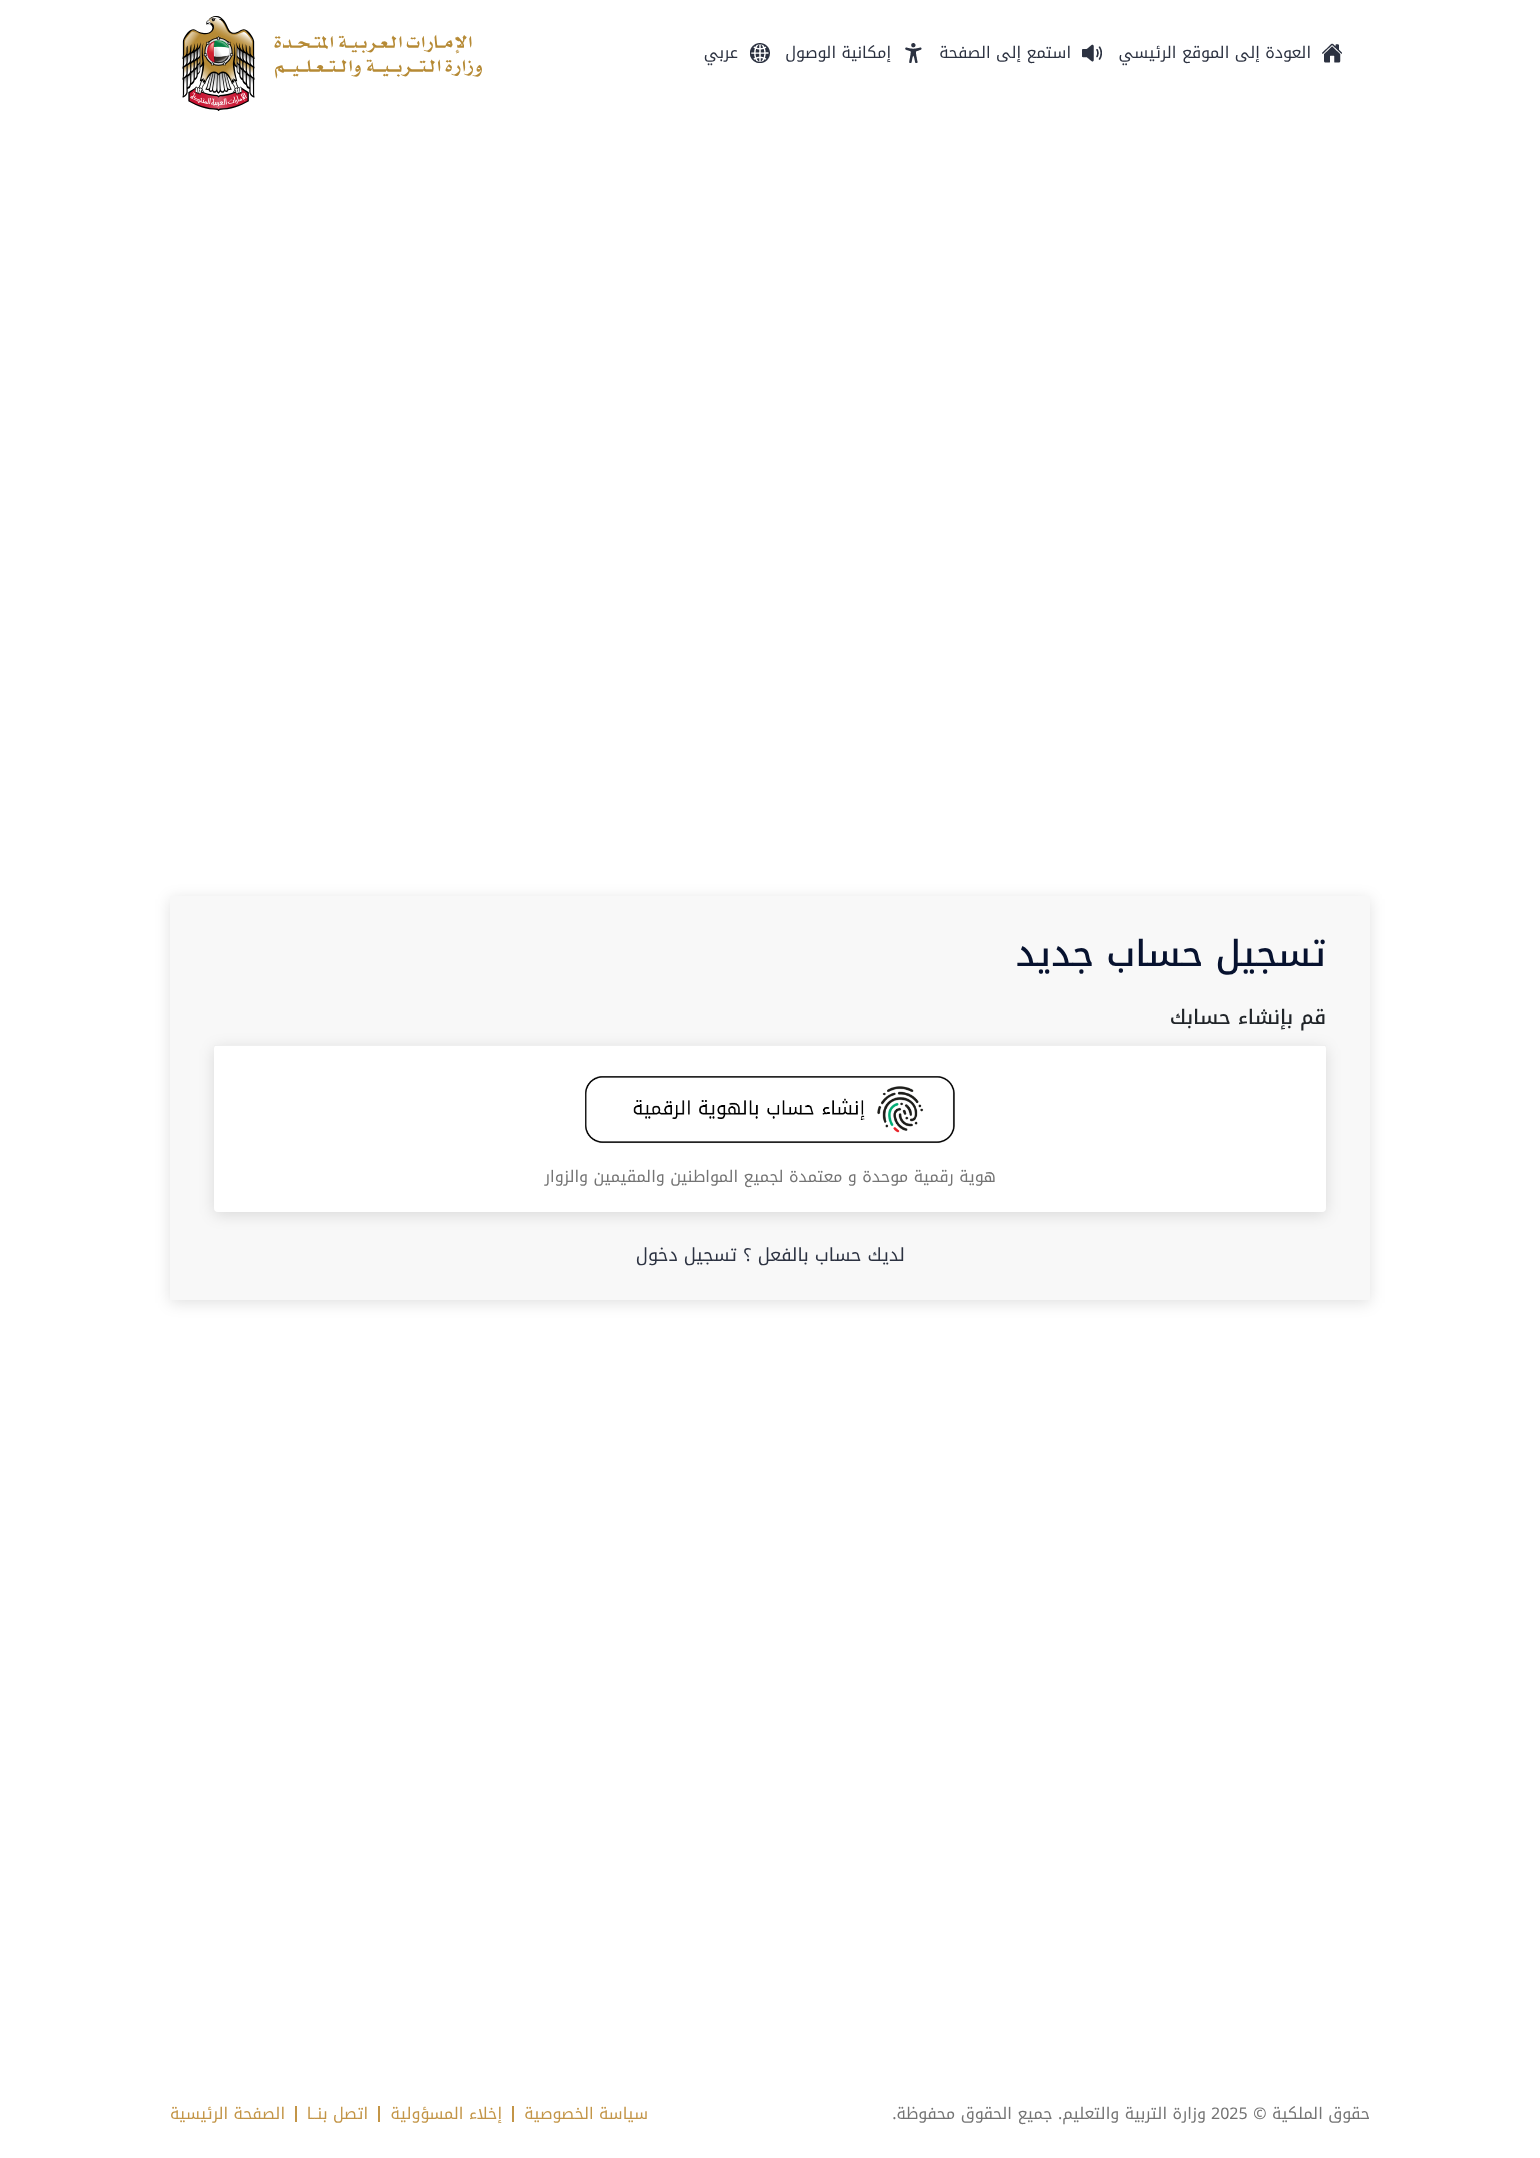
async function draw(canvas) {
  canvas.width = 1540;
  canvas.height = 2158;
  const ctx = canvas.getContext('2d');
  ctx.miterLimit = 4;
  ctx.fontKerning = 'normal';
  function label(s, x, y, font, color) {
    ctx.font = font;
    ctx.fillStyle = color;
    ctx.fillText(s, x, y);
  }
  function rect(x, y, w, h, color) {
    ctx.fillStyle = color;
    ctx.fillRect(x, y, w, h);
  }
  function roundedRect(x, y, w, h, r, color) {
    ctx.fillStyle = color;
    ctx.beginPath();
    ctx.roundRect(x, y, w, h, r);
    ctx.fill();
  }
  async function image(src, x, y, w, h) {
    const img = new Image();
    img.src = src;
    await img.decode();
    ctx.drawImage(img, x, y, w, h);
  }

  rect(0, 0, 1540, 2158, '#fff');
  await image('assets/img1.png', 1322, 43, 20, 20);
  ctx.direction = 'rtl';
  label('العودة إلى الموقع الرئيسي', 1311, 58, '16px Noto Kufi Arabic', '#2c3241');
  await image('assets/img2.png', 1082, 44, 20, 18);
  label('استمع إلى الصفحة', 1071, 58, '16px Noto Kufi Arabic', '#2c3241');
  await image('assets/img3.png', 905, 43, 17, 20);
  label('إمكانية الوصول', 891, 58, '16px Noto Kufi Arabic', '#2c3241');
  await image('assets/img4.png', 750, 43, 20, 20);
  label('عربي', 738, 58, '16px Noto Kufi Arabic', '#2c3241');
  await image('assets/img5.png', 182, 16, 300, 95);
  ctx.fillStyle = '#0000001f';
  ctx.filter = 'blur(7.5px)';
  ctx.beginPath();
  ctx.rect(170, 899, 1200, 404);
  ctx.fill();
  ctx.filter = 'none';
  rect(170, 896, 1200, 404, '#f8f8f8');
  label('تسجيل حساب جديد', 1326, 966, '500 36px Noto Kufi Arabic', '#07122f');
  ctx.fillStyle = '#0000001f';
  ctx.filter = 'blur(7.5px)';
  ctx.beginPath();
  ctx.roundRect(214, 1048, 1112, 167, 4);
  ctx.fill();
  ctx.filter = 'none';
  label('قم بإنشاء حسابك', 1326, 1024, '500 20px Noto Kufi Arabic', '#212529');
  roundedRect(214, 1045, 1112, 167, 4, '#fff');
  rect(214, 1045, 1112, 1, '#efefef');
  await image('assets/img6.png', 585, 1076, 370, 68);
  label('هوية رقمية موحدة و معتمدة لجميع المواطنين والمقيمين والزوار', 996, 1182, '16px Noto Kufi Arabic', '#747474');
  label('لديك حساب بالفعل ؟ تسجيل دخول', 905, 1261, '18px Noto Kufi Arabic', '#2c3241');
  label('حقوق الملكية ©', 1370, 2119, '16px Noto Kufi Arabic', '#747474');
  ctx.direction = 'ltr';
  label('2025', 1211, 2119, '16px Noto Kufi Arabic', '#747474');
  ctx.direction = 'rtl';
  label('وزارة التربية والتعليم. جميع الحقوق محفوظة.', 1206, 2119, '16px Noto Kufi Arabic', '#747474');
  label('سياسة الخصوصية', 648, 2119, '16px Noto Kufi Arabic', '#c39547');
  rect(512, 2106, 2, 16, '#c39547');
  label('إخلاء المسؤولية', 502, 2119, '16px Noto Kufi Arabic', '#c39547');
  rect(378, 2106, 2, 16, '#c39547');
  label('اتصل بنــا', 368, 2119, '16px Noto Kufi Arabic', '#c39547');
  rect(295, 2106, 2, 16, '#c39547');
  label('الصفحة الرئيسية', 285, 2119, '16px Noto Kufi Arabic', '#c39547');
}

draw(document.querySelector('canvas'));
